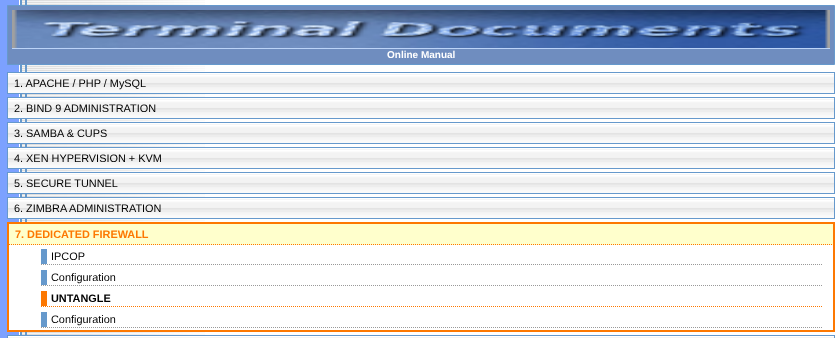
async function draw(canvas) {
  canvas.width = 840;
  canvas.height = 338;
  const ctx = canvas.getContext('2d');
  ctx.miterLimit = 4;
  ctx.fontKerning = 'normal';
  function label(s, x, y, font, color) {
    ctx.font = font;
    ctx.fillStyle = color;
    ctx.fillText(s, x, y);
  }
  function rect(x, y, w, h, color) {
    ctx.fillStyle = color;
    ctx.fillRect(x, y, w, h);
  }
  async function image(src, x, y, w, h) {
    const img = new Image();
    img.src = src;
    await img.decode();
    ctx.drawImage(img, x, y, w, h);
  }
  let path;

  rect(0, 0, 840, 338, '#fff');
  await image('assets/img1.png', 0, 0, 205, 338);
  ctx.fillStyle = '#6f8dbf';
  ctx.beginPath();
  ctx.rect(7.5, 5.5, 827, 59);
  ctx.fill();
  ctx.strokeStyle = '#69c';
  ctx.stroke();
  await image('assets/img2.png', 12, 10, 818, 39);
  label('Online Manual', 387, 58, 'bold 10px Liberation Sans', '#fff');
  rect(8, 73, 179, 1, '#fff');
  await image('assets/img3.png', 8, 74, 826, 19);
  ctx.strokeRect(7.5, 72.5, 827, 21);
  label('1. APACHE / PHP / MySQL', 14, 87, '10.9px Liberation Sans', '#000');
  rect(8, 98, 197, 1, '#fff');
  await image('assets/img3.png', 8, 99, 826, 19);
  ctx.strokeRect(7.5, 97.5, 827, 21);
  label('2. BIND 9 ADMINISTRATION', 14, 112, '10.9px Liberation Sans', '#000');
  rect(8, 123, 179, 1, '#fff');
  await image('assets/img3.png', 8, 124, 826, 19);
  ctx.strokeRect(7.5, 122.5, 827, 21);
  label('3. SAMBA & CUPS', 14, 137, '10.9px Liberation Sans', '#000');
  rect(8, 148, 197, 1, '#fff');
  await image('assets/img3.png', 8, 149, 826, 19);
  ctx.strokeRect(7.5, 147.5, 827, 21);
  label('4. XEN HYPERVISION + KVM', 14, 162, '10.9px Liberation Sans', '#000');
  rect(8, 173, 179, 1, '#fff');
  await image('assets/img3.png', 8, 174, 826, 19);
  ctx.strokeRect(7.5, 172.5, 827, 21);
  label('5. SECURE TUNNEL', 14, 187, '10.9px Liberation Sans', '#000');
  rect(8, 198, 197, 1, '#fff');
  await image('assets/img3.png', 8, 199, 826, 19);
  ctx.strokeRect(7.5, 197.5, 827, 21);
  label('6. ZIMBRA ADMINISTRATION', 14, 212, '10.9px Liberation Sans', '#000');
  rect(9, 245, 196, 85, '#fff');
  ctx.strokeStyle = '#fd7801';
  ctx.lineWidth = 2;
  ctx.strokeRect(8, 223, 826, 108);
  rect(9, 224, 824, 21, '#ffc');
  path = new Path2D('M9 244.5H833');
  ctx.lineWidth = 1;
  ctx.setLineDash([1, 1]);
  ctx.stroke(path);
  label('7. DEDICATED FIREWALL', 15, 238, 'bold 10.9px Liberation Sans', '#fd7801');
  rect(41, 249, 6, 15, '#69c');
  path = new Path2D('M41 264.5H823');
  ctx.strokeStyle = '#999';
  ctx.stroke(path);
  label('IPCOP', 51, 260, '10.9px Liberation Sans', '#000');
  rect(41, 270, 6, 15, '#69c');
  path = new Path2D('M41 285.5H823');
  ctx.stroke(path);
  label('Configuration', 51, 281, '10.9px Liberation Sans', '#000');
  rect(41, 291, 6, 15, '#fd7801');
  path = new Path2D('M41 306.5H823');
  ctx.strokeStyle = '#fd7801';
  ctx.stroke(path);
  label('UNTANGLE', 51, 302, 'bold 10.9px Liberation Sans', '#000');
  rect(41, 312, 6, 15, '#69c');
  path = new Path2D('M41 327.5H823');
  ctx.strokeStyle = '#999';
  ctx.stroke(path);
  label('Configuration', 51, 323, '10.9px Liberation Sans', '#000');
  rect(7, 336, 198, 1, '#fff');
  rect(7, 337, 828, 1, '#f6f6f6');
  ctx.strokeStyle = '#69c';
  ctx.setLineDash([]);
  ctx.strokeRect(7.5, 335.5, 827, 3);
}

draw(document.querySelector('canvas'));
